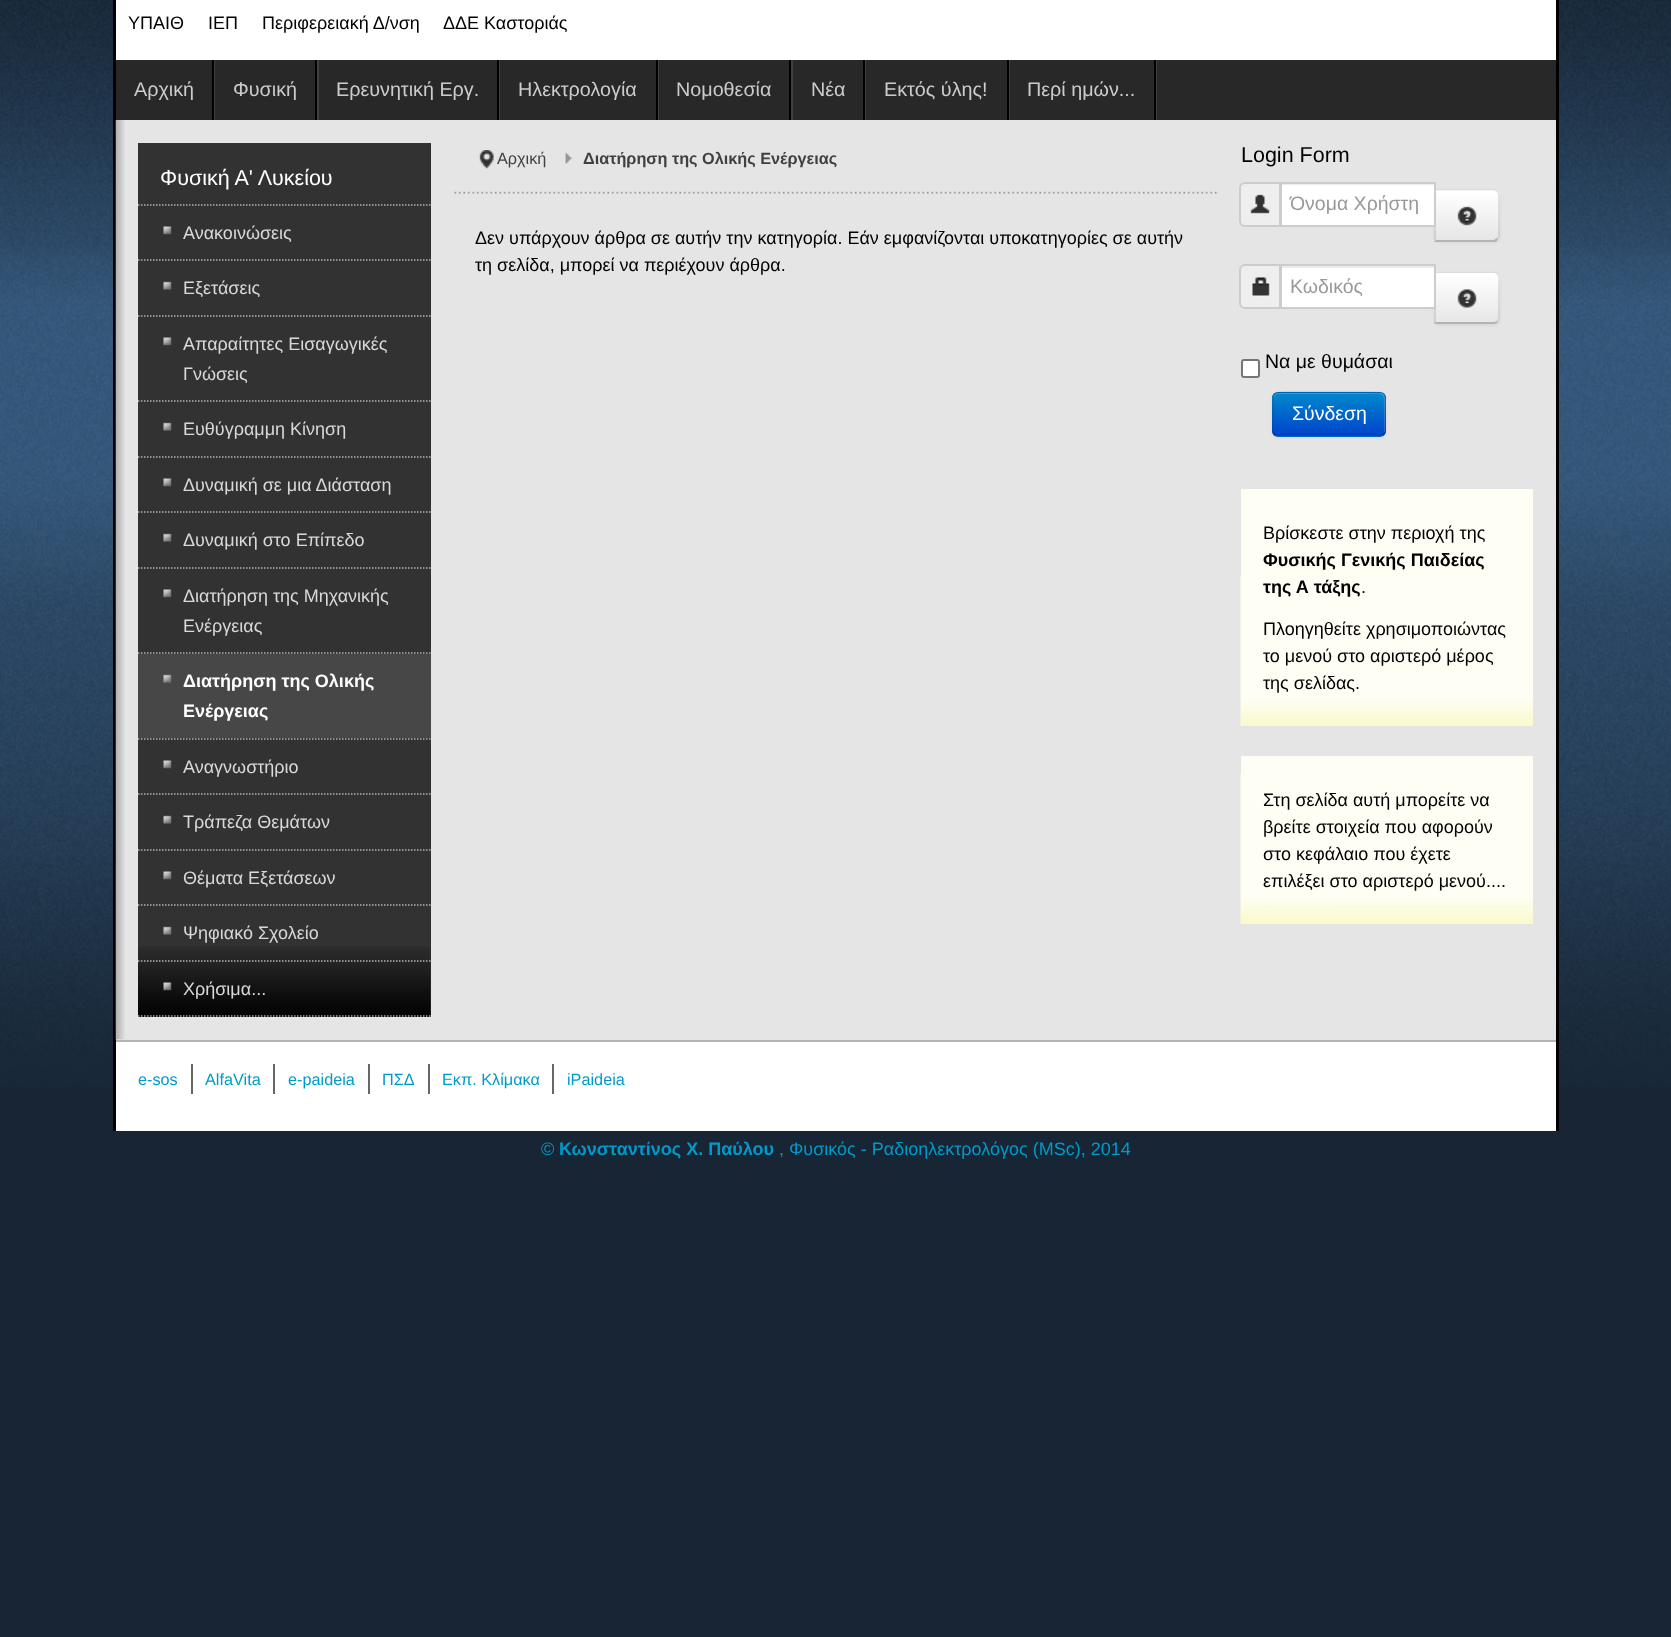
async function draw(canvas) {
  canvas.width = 1671;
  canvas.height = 1637;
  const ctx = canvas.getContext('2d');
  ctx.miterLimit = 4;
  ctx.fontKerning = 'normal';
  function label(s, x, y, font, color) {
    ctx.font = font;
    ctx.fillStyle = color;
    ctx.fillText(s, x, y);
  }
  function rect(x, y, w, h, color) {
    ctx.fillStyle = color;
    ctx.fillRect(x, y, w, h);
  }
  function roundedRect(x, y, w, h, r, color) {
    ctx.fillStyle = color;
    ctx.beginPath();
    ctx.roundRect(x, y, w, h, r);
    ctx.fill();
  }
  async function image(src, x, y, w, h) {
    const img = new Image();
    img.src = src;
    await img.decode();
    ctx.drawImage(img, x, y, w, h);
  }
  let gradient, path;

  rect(0, 0, 1671, 1637, '#172534');
  await image('assets/img1.png', 0, 0, 1671, 1087);
  rect(116, 0, 1440, 1131, '#fff');
  rect(1556, 0, 3, 1131, '#000');
  rect(113, 0, 3, 1131, '#000');
  label('ΥΠΑΙΘ', 128, 29, '18px Liberation Sans', '#000');
  label('ΙΕΠ', 208, 29, '18px Liberation Sans', '#000');
  label('Περιφερειακή Δ/νση', 262, 29, '18px Liberation Sans', '#000');
  label('ΔΔΕ Καστοριάς', 443, 29, '18px Liberation Sans', '#000');
  rect(116, 60, 1440, 60, '#282828');
  rect(214, 60, 1, 60, '#404040');
  rect(212, 60, 2, 60, '#000');
  label('Αρχική', 134, 96, '19.75px Liberation Sans', '#ccc');
  rect(317, 60, 2, 60, '#404040');
  rect(315, 60, 2, 60, '#000');
  label('Φυσική', 233, 96, '19.75px Liberation Sans', '#ccc');
  rect(499, 60, 1, 60, '#404040');
  rect(497, 60, 2, 60, '#000');
  label('Ερευνητική Εργ.', 336, 96, '19.75px Liberation Sans', '#ccc');
  rect(658, 60, 1, 60, '#404040');
  rect(656, 60, 2, 60, '#000');
  label('Ηλεκτρολογία', 518, 96, '19.75px Liberation Sans', '#ccc');
  rect(791, 60, 2, 60, '#404040');
  rect(789, 60, 2, 60, '#000');
  label('Νομοθεσία', 676, 96, '19.75px Liberation Sans', '#ccc');
  rect(865, 60, 1, 60, '#404040');
  rect(863, 60, 2, 60, '#000');
  label('Νέα', 811, 96, '19.75px Liberation Sans', '#ccc');
  rect(1009, 60, 1, 60, '#404040');
  rect(1007, 60, 2, 60, '#000');
  label('Εκτός ύλης!', 884, 96, '19.75px Liberation Sans', '#ccc');
  rect(1156, 60, 1, 60, '#404040');
  rect(1154, 60, 2, 60, '#000');
  label('Περί ημών...', 1027, 96, '19.75px Liberation Sans', '#ccc');
  rect(116, 120, 1440, 920, '#e5e5e5');
  await image('assets/img2.png', 115, 120, 10, 920);
  rect(138, 143, 293, 874, '#323232');
  await image('assets/img3.png', 138, 946, 293, 71);
  label('Φυσική Α\' Λυκείου', 160, 185, '21.5px Liberation Sans', '#fff');
  path = new Path2D('M138 205H430.5');
  ctx.strokeStyle = '#b3b3b3';
  ctx.lineWidth = 1.5;
  ctx.setLineDash([1.5, 1.5]);
  ctx.stroke(path);
  path = new Path2D('M138 260H430.5');
  ctx.stroke(path);
  await image('assets/img4.png', 163, 226, 9, 9);
  label('Ανακοινώσεις', 183, 239, '18px Liberation Sans', '#d9d9d9');
  path = new Path2D('M138 316H430.5');
  ctx.stroke(path);
  await image('assets/img5.png', 163, 281, 9, 9);
  label('Εξετάσεις', 183, 294, '18px Liberation Sans', '#d9d9d9');
  path = new Path2D('M138 401H430.5');
  ctx.stroke(path);
  await image('assets/img4.png', 163, 337, 9, 9);
  label('Απαραίτητες Εισαγωγικές', 183, 350, '18px Liberation Sans', '#d9d9d9');
  label('Γνώσεις', 183, 380, '18px Liberation Sans', '#d9d9d9');
  path = new Path2D('M138 457H430.5');
  ctx.stroke(path);
  await image('assets/img5.png', 163, 422, 9, 9);
  label('Ευθύγραμμη Κίνηση', 183, 435, '18px Liberation Sans', '#d9d9d9');
  path = new Path2D('M138 512H430.5');
  ctx.stroke(path);
  await image('assets/img4.png', 163, 478, 9, 9);
  label('Δυναμική σε μια Διάσταση', 183, 491, '18px Liberation Sans', '#d9d9d9');
  path = new Path2D('M138 568H430.5');
  ctx.stroke(path);
  await image('assets/img5.png', 163, 533, 9, 9);
  label('Δυναμική στο Επίπεδο', 183, 546, '18px Liberation Sans', '#d9d9d9');
  path = new Path2D('M138 653H430.5');
  ctx.stroke(path);
  await image('assets/img4.png', 163, 589, 9, 9);
  label('Διατήρηση της Μηχανικής', 183, 602, '18px Liberation Sans', '#d9d9d9');
  label('Ενέργειας', 183, 632, '18px Liberation Sans', '#d9d9d9');
  path = new Path2D('M138 739H430.5');
  ctx.stroke(path);
  rect(138, 654, 293, 84, '#474747');
  await image('assets/img6.png', 163, 674, 9, 9);
  label('Διατήρηση της Ολικής', 183, 687, 'bold 18px Liberation Sans', '#fff');
  label('Ενέργειας', 183, 717, 'bold 18px Liberation Sans', '#fff');
  path = new Path2D('M138 794H430.5');
  ctx.stroke(path);
  await image('assets/img4.png', 163, 760, 9, 9);
  label('Αναγνωστήριο', 183, 773, '18px Liberation Sans', '#d9d9d9');
  path = new Path2D('M138 850H430.5');
  ctx.stroke(path);
  await image('assets/img5.png', 163, 815, 9, 9);
  label('Τράπεζα Θεμάτων', 183, 828, '18px Liberation Sans', '#d9d9d9');
  path = new Path2D('M138 905H430.5');
  ctx.stroke(path);
  await image('assets/img4.png', 163, 871, 9, 9);
  label('Θέματα Εξετάσεων', 183, 884, '18px Liberation Sans', '#d9d9d9');
  path = new Path2D('M138 961H430.5');
  ctx.stroke(path);
  await image('assets/img5.png', 163, 926, 9, 9);
  label('Ψηφιακό Σχολείο', 183, 939, '18px Liberation Sans', '#d9d9d9');
  path = new Path2D('M138 1016H430.5');
  ctx.stroke(path);
  await image('assets/img7.png', 163, 982, 9, 9);
  label('Χρήσιμα...', 183, 995, '18px Liberation Sans', '#d9d9d9');
  await image('assets/img8.png', 454, 191, 763, 3);
  await image('assets/img9.png', 479, 150, 15, 19);
  await image('assets/img10.png', 565, 152, 7, 12);
  label('Αρχική', 497, 164, '16.25px Liberation Sans', '#404040');
  label('Διατήρηση της Ολικής Ενέργειας', 583, 164, 'bold 16.25px Liberation Sans', '#404040');
  label('Δεν υπάρχουν άρθρα σε αυτήν την κατηγορία. Εάν εμφανίζονται υποκατηγορίες σε αυτήν', 475, 244, '18px Liberation Sans', '#000');
  label('τη σελίδα, μπορεί να περιέχουν άρθρα.', 475, 271, '18px Liberation Sans', '#000');
  label('Login Form', 1241, 162, '21.5px Liberation Sans', '#000');
  ctx.fillStyle = '#eee';
  ctx.beginPath();
  ctx.roundRect(1240, 183, 40, 43, [5, 0, 0, 5]);
  ctx.fill();
  ctx.strokeStyle = '#ccc';
  ctx.lineWidth = 2;
  ctx.setLineDash([]);
  ctx.stroke();
  await image('assets/img11.png', 1250, 194, 20, 20);
  ctx.fillStyle = '#0000000d';
  ctx.filter = 'blur(1.5px)';
  ctx.beginPath();
  ctx.roundRect(1434, 191, 66, 52, 6);
  ctx.fill();
  ctx.filter = 'none';
  rect(1282, 185, 152, 40, '#fff');
  rect(1281, 184, 153, 1, '#ececec');
  ctx.fillStyle = '#f5f5f5';
  ctx.beginPath();
  ctx.roundRect(1434, 189, 66, 53, [0, 6, 6, 0]);
  ctx.fill();
  ctx.save();
  ctx.beginPath();
  ctx.roundRect(1434, 189, 66, 53, [0, 6, 6, 0]);
  ctx.clip();
  gradient = ctx.createLinearGradient(1467, 191, 1467, 240);
  gradient.addColorStop(0, '#fff');
  gradient.addColorStop(1, '#e6e6e6');
  ctx.fillStyle = gradient;
  ctx.fillRect(1434, 191, 66, 49);
  ctx.restore();
  ctx.fillStyle = '#ffffff33';
  path = new Path2D('M1436 192H1484C1501 192 1498 192 1498 210V238C1499 237 1499 236 1499 235V196C1499 193 1497 191 1494 191H1436Z');
  ctx.fill(path);
  ctx.fillStyle = '#0000001a';
  path = new Path2D('M1434 189L1436 191V190H1494L1497 192L1498 191C1497 190 1496 189 1494 189Z');
  ctx.fill(path);
  path = new Path2D('M1500 236V195C1500 194 1499 192 1498 191L1497 192L1498 195V236L1497 238L1498 240C1499 239 1500 237 1500 236Z');
  ctx.fill(path);
  ctx.fillStyle = '#b3b3b3';
  path = new Path2D('M1496 242H1434L1436 240H1494L1497 238L1498 240Z');
  ctx.fill(path);
  ctx.fillStyle = '#0000001a';
  path = new Path2D('M1434 189V242L1436 240V191Z');
  ctx.fill(path);
  ctx.strokeRect(1281, 183, 154, 43);
  label('Όνομα Χρήστη', 1290, 210, '19.5px Liberation Sans', '#999');
  await image('assets/img12.png', 1457, 206, 20, 20);
  ctx.fillStyle = '#eee';
  ctx.beginPath();
  ctx.roundRect(1240, 265, 40, 43, [5, 0, 0, 5]);
  ctx.fill();
  ctx.stroke();
  await image('assets/img13.png', 1252, 277, 18, 20);
  ctx.fillStyle = '#0000000d';
  ctx.filter = 'blur(1.5px)';
  ctx.beginPath();
  ctx.roundRect(1434, 273, 66, 53, 6);
  ctx.fill();
  ctx.filter = 'none';
  rect(1282, 268, 152, 39, '#fff');
  rect(1281, 266, 153, 2, '#ececec');
  ctx.fillStyle = '#f5f5f5';
  ctx.beginPath();
  ctx.roundRect(1434, 272, 66, 52, [0, 6, 6, 0]);
  ctx.fill();
  ctx.save();
  ctx.beginPath();
  ctx.roundRect(1434, 272, 66, 52, [0, 6, 6, 0]);
  ctx.clip();
  gradient = ctx.createLinearGradient(1467, 273, 1467, 323);
  gradient.addColorStop(0, '#fff');
  gradient.addColorStop(1, '#e6e6e6');
  ctx.fillStyle = gradient;
  ctx.fillRect(1434, 273, 66, 50);
  ctx.restore();
  ctx.fillStyle = '#ffffff33';
  path = new Path2D('M1436 274H1475C1500 274 1498 270 1498 293V321C1499 320 1499 319 1499 318V278C1499 275 1497 273 1494 273H1436Z');
  ctx.fill(path);
  ctx.fillStyle = '#0000001a';
  path = new Path2D('M1436 273H1495L1497 275L1498 273C1497 272 1495 272 1494 272H1434L1436 274Z');
  ctx.fill(path);
  path = new Path2D('M1498 273C1499 274 1500 276 1500 278V318C1500 320 1499 321 1498 322L1497 321L1498 318V285C1498 282 1499 277 1497 275Z');
  ctx.fill(path);
  ctx.fillStyle = '#b3b3b3';
  path = new Path2D('M1494 324C1496 324 1497 323 1498 322L1497 321L1494 322H1436L1434 324Z');
  ctx.fill(path);
  ctx.fillStyle = '#0000001a';
  path = new Path2D('M1434 324L1436 322V274L1434 272Z');
  ctx.fill(path);
  ctx.strokeRect(1281, 265, 154, 43);
  label('Κωδικός', 1290, 293, '19.5px Liberation Sans', '#999');
  await image('assets/img14.png', 1457, 289, 20, 20);
  ctx.fillStyle = '#fff';
  ctx.beginPath();
  ctx.roundRect(1242, 360, 17, 17, 2);
  ctx.fill();
  ctx.strokeStyle = '#767676';
  ctx.stroke();
  label('Να με θυμάσαι', 1265, 368, '19.5px Liberation Sans', '#000');
  ctx.fillStyle = '#0000000d';
  ctx.filter = 'blur(1.5px)';
  ctx.beginPath();
  ctx.roundRect(1272, 393, 114, 45, 6);
  ctx.fill();
  ctx.filter = 'none';
  roundedRect(1272, 392, 114, 45, 6, '#006dcc');
  ctx.save();
  ctx.beginPath();
  ctx.roundRect(1272, 392, 114, 45, 6);
  ctx.clip();
  gradient = ctx.createLinearGradient(1329, 393, 1329, 435);
  gradient.addColorStop(0, '#08c');
  gradient.addColorStop(1, '#04c');
  ctx.fillStyle = gradient;
  ctx.fillRect(1272, 393, 114, 42);
  ctx.restore();
  ctx.fillStyle = '#ffffff33';
  path = new Path2D('M1278 394H1363C1385 394 1384 391 1384 410V433C1385 432 1385 431 1385 430V398C1385 395 1383 393 1380 393H1279C1276 393 1274 395 1274 398V399C1274 397 1276 394 1278 394Z');
  ctx.fill(path);
  path = new Path2D('M1383.5 434L1380.5 435.5H1277.5L1274.5 434');
  ctx.strokeStyle = '#00000040';
  ctx.lineWidth = 1.5;
  ctx.stroke(path);
  path = new Path2D('M1274.5 434C1272 432 1273 428 1273 425V414C1273 389 1269 392 1295 392H1363C1389 392 1385 389 1385 414V425C1385 428 1386 432 1383.5 434');
  ctx.strokeStyle = '#0000001a';
  ctx.stroke(path);
  label('Σύνδεση', 1292, 420, '19.5px Liberation Sans', '#fff');
  rect(1241, 489, 292, 87, '#fefef5');
  await image('assets/img15.png', 1240, 576, 293, 150);
  label('Βρίσκεστε στην περιοχή της', 1263, 539, '18px Liberation Sans', '#000');
  label('Φυσικής Γενικής Παιδείας', 1263, 566, 'bold 18px Liberation Sans', '#000');
  label('της Α τάξης', 1263, 593, 'bold 18px Liberation Sans', '#000');
  label('.', 1361, 593, '18px Liberation Sans', '#000');
  label('Πλοηγηθείτε χρησιμοποιώντας', 1263, 635, '18px Liberation Sans', '#000');
  label('το μενού στο αριστερό μέρος', 1263, 662, '18px Liberation Sans', '#000');
  label('της σελίδας.', 1263, 689, '18px Liberation Sans', '#000');
  rect(1241, 756, 292, 18, '#fefef5');
  await image('assets/img15.png', 1240, 774, 293, 150);
  label('Στη σελίδα αυτή μπορείτε να', 1263, 806, '18px Liberation Sans', '#000');
  label('βρείτε στοιχεία που αφορούν', 1263, 833, '18px Liberation Sans', '#000');
  label('στο κεφάλαιο που έχετε', 1263, 860, '18px Liberation Sans', '#000');
  label('επιλέξει στο αριστερό μενού....', 1263, 887, '18px Liberation Sans', '#000');
  rect(116, 1040, 1440, 2, '#b3b3b3');
  rect(191, 1064, 2, 30, '#666');
  label('e-sos', 138, 1085, '16.25px Liberation Sans', '#009aca');
  rect(273, 1064, 2, 30, '#666');
  label('AlfaVita', 205, 1085, '16.25px Liberation Sans', '#009aca');
  rect(368, 1064, 2, 30, '#666');
  label('e-paideia', 288, 1085, '16.25px Liberation Sans', '#009aca');
  rect(428, 1064, 2, 30, '#666');
  label('ΠΣΔ', 382, 1085, '16.25px Liberation Sans', '#009aca');
  rect(552, 1064, 2, 30, '#666');
  label('Εκπ. Κλίμακα', 442, 1085, '16.25px Liberation Sans', '#009aca');
  label('iPaideia', 567, 1085, '16.25px Liberation Sans', '#009aca');
  label('©', 541, 1155, '18px Liberation Sans', '#009aca');
  label('Κωνσταντίνος Χ. Παύλου', 559, 1155, 'bold 18px Liberation Sans', '#009aca');
  label(', Φυσικός - Ραδιοηλεκτρολόγος (MSc), 2014', 779, 1155, '18px Liberation Sans', '#009aca');
}

draw(document.querySelector('canvas'));
